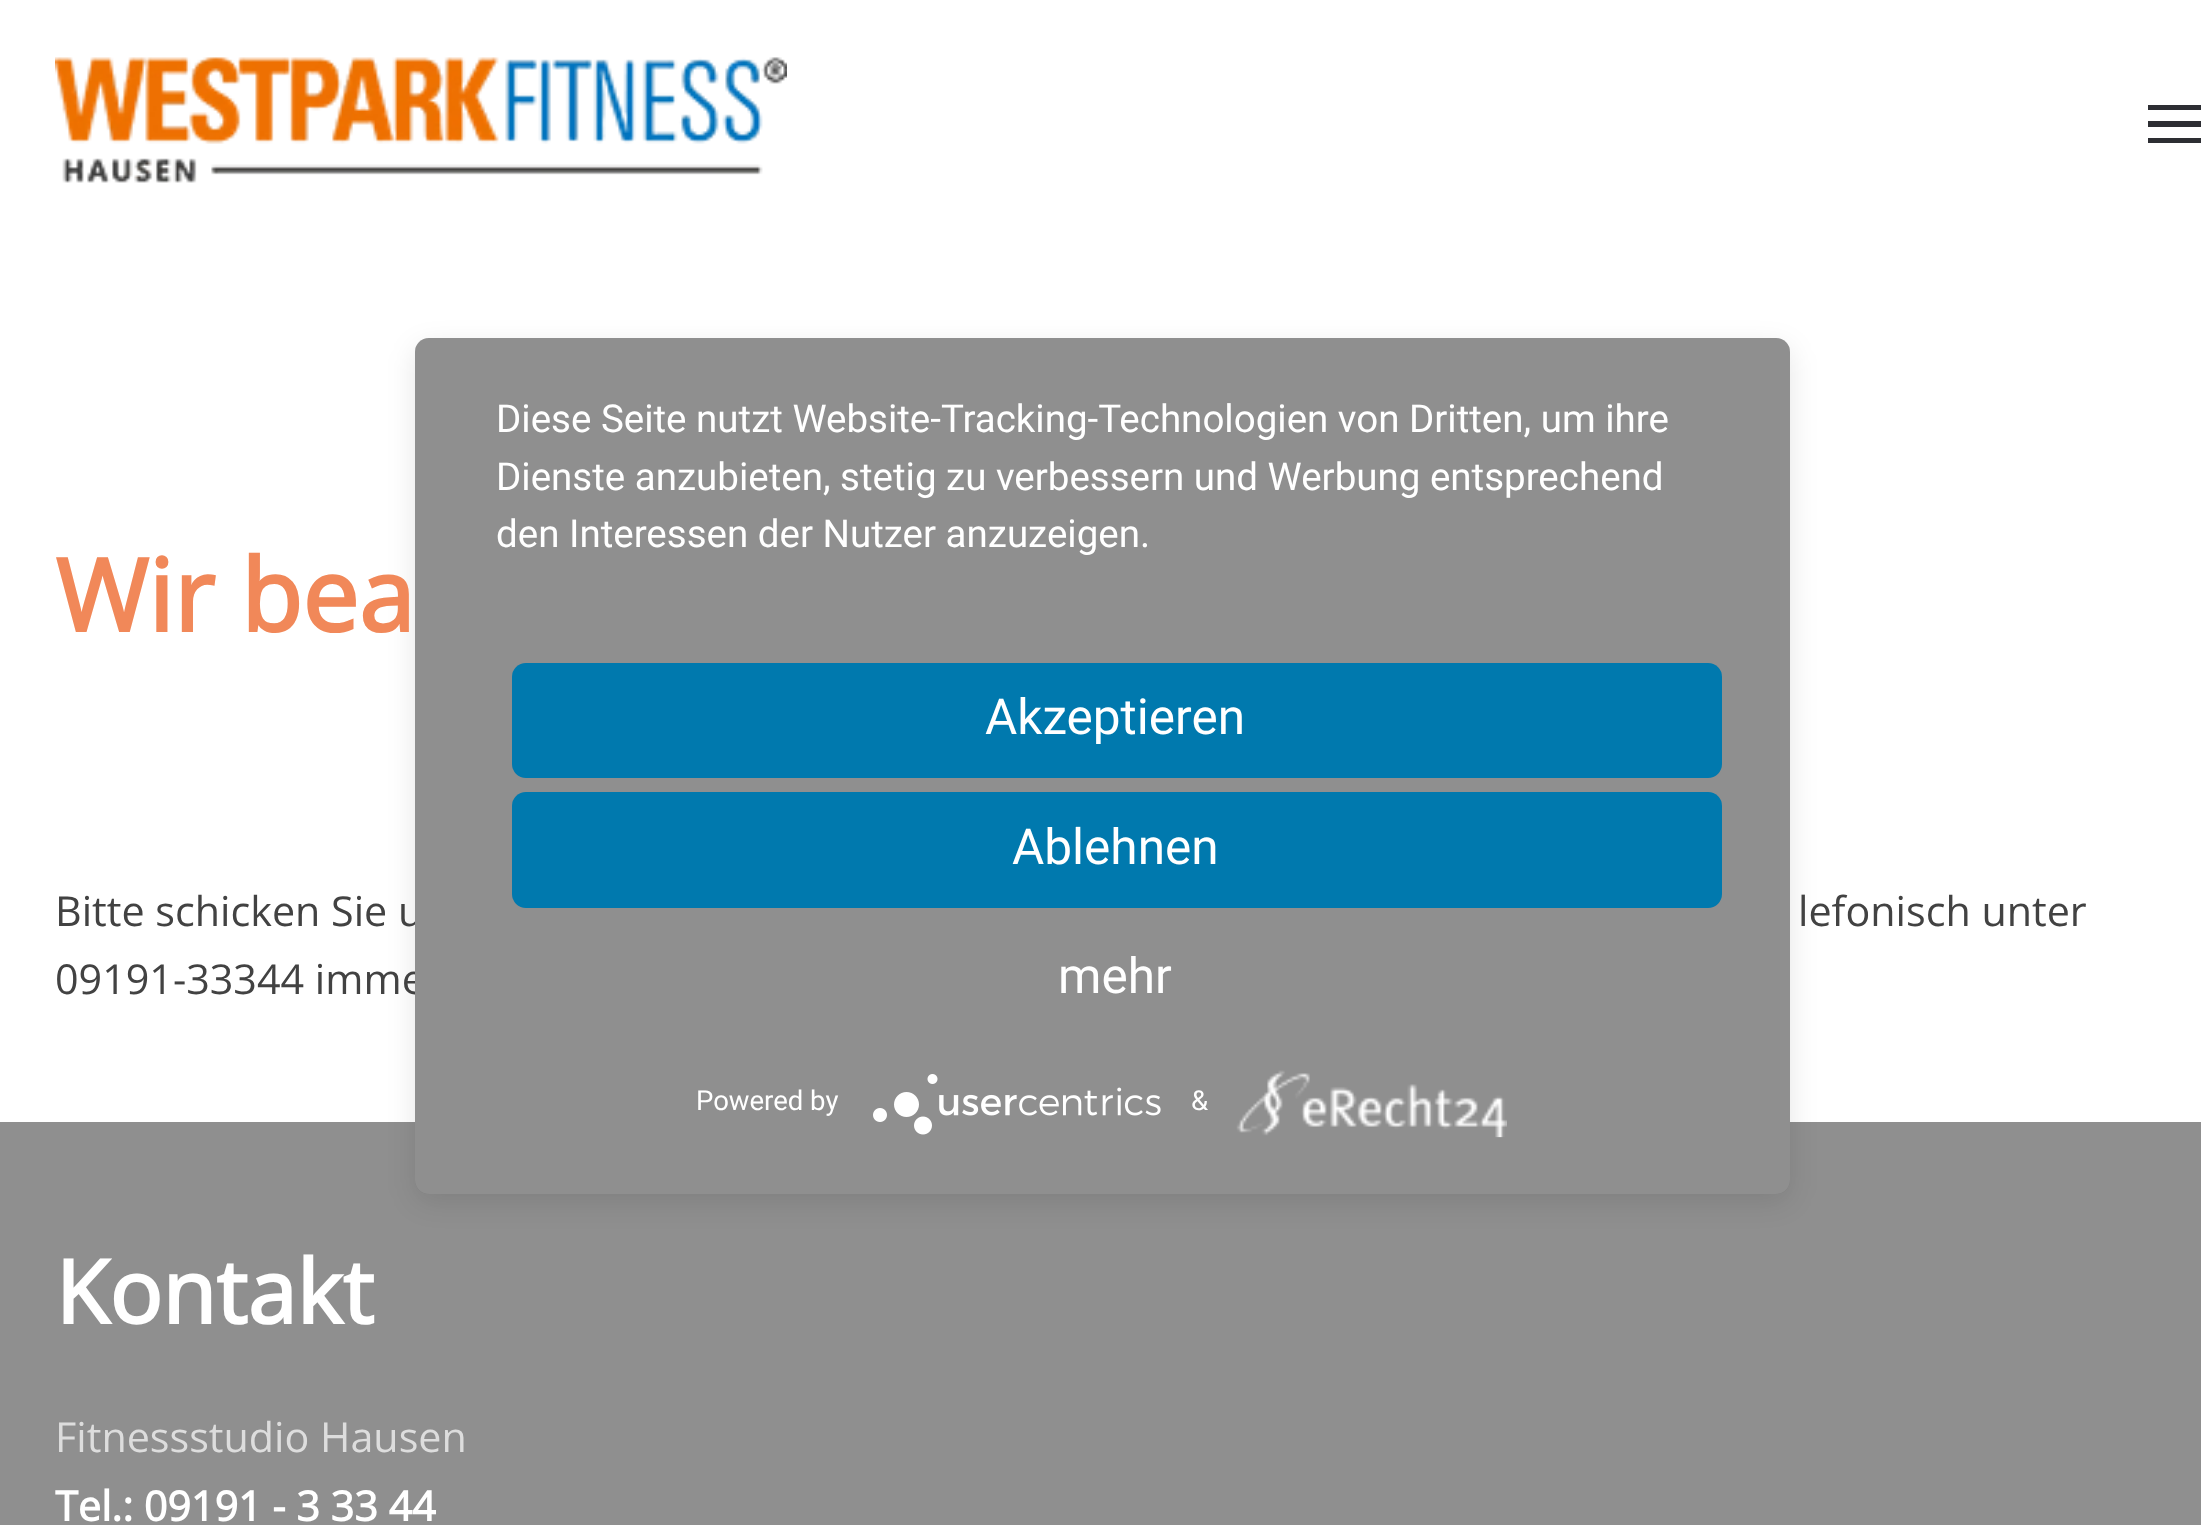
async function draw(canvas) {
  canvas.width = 2201;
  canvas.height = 1525;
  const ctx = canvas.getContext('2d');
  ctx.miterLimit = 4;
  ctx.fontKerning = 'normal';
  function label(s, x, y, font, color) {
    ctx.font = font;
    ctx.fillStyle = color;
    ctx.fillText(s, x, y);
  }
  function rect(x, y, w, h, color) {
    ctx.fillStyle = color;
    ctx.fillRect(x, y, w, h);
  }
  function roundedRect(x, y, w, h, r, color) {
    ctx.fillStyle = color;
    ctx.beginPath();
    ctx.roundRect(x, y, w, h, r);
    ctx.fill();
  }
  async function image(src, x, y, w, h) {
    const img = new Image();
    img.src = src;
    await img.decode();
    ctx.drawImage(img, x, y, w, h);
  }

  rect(0, 0, 2201, 1525, '#fff');
  rect(0, 1122, 2201, 403, '#8f8f8f');
  ctx.fillStyle = '#0000001a';
  ctx.filter = 'blur(14px)';
  ctx.beginPath();
  ctx.roundRect(415, 347, 1375, 855, 14);
  ctx.fill();
  ctx.filter = 'none';
  ctx.save();
  ctx.beginPath();
  ctx.roundRect(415, 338, 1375, 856, 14);
  ctx.clip();
  ctx.fillStyle = '#0000004d';
  ctx.filter = 'blur(49.5px)';
  ctx.beginPath();
  ctx.rect(415, 355, 1375, 855);
  ctx.fill();
  ctx.filter = 'none';
  ctx.restore();
  label('Bitte schicken Sie u', 55, 926, '41.25px Open Sans', '#424242');
  label('09191-33344 imme', 55, 994, '41.25px Open Sans', '#424242');
  roundedRect(415, 338, 1375, 856, 14, '#8f8f8f');
  label('Diese Seite nutzt Website-Tracking-Technologien von Dritten, um ihre', 496, 432, '38.5px Roboto', '#fff');
  label('Dienste anzubieten, stetig zu verbessern und Werbung entsprechend', 496, 490, '38.5px Roboto', '#fff');
  label('den Interessen der Nutzer anzuzeigen.', 496, 547, '38.5px Roboto', '#fff');
  roundedRect(512, 663, 1210, 115, 14, '#0079ae');
  label('Akzeptieren', 985, 734, '49.5px Roboto', '#fff');
  roundedRect(512, 792, 1210, 116, 14, '#0079ae');
  label('Ablehnen', 1012, 864, '49.5px Roboto', '#fff');
  label('mehr', 1058, 993, '49.5px Roboto', '#fff');
  label('Powered by', 696, 1110, '27.5px Roboto', '#fff');
  await image('assets/img1.png', 873, 1074, 288, 61);
  label('&', 1191, 1110, '27.5px Roboto', '#fff');
  await image('assets/img2.png', 1236, 1070, 271, 68);
  await image('assets/img3.png', 55, 57, 732, 126);
  rect(2148, 105, 53, 5, '#2d2e33');
  rect(2148, 121, 53, 6, '#2d2e33');
  rect(2148, 138, 53, 5, '#2d2e33');
  label('Wir bea', 55, 632, 'bold 100.5px Open Sans', '#f18859');
  label('lefonisch unter', 1798, 926, '41.25px Open Sans', '#424242');
  label('Kontakt', 55, 1324, 'bold 88px Open Sans', '#fff');
  label('Fitnessstudio Hausen', 55, 1452, '41.25px Open Sans', '#ddd');
  label('Tel.: 09191 - 3 33 44', 55, 1521, 'bold 41.25px Open Sans', '#fff');
}

draw(document.querySelector('canvas'));
